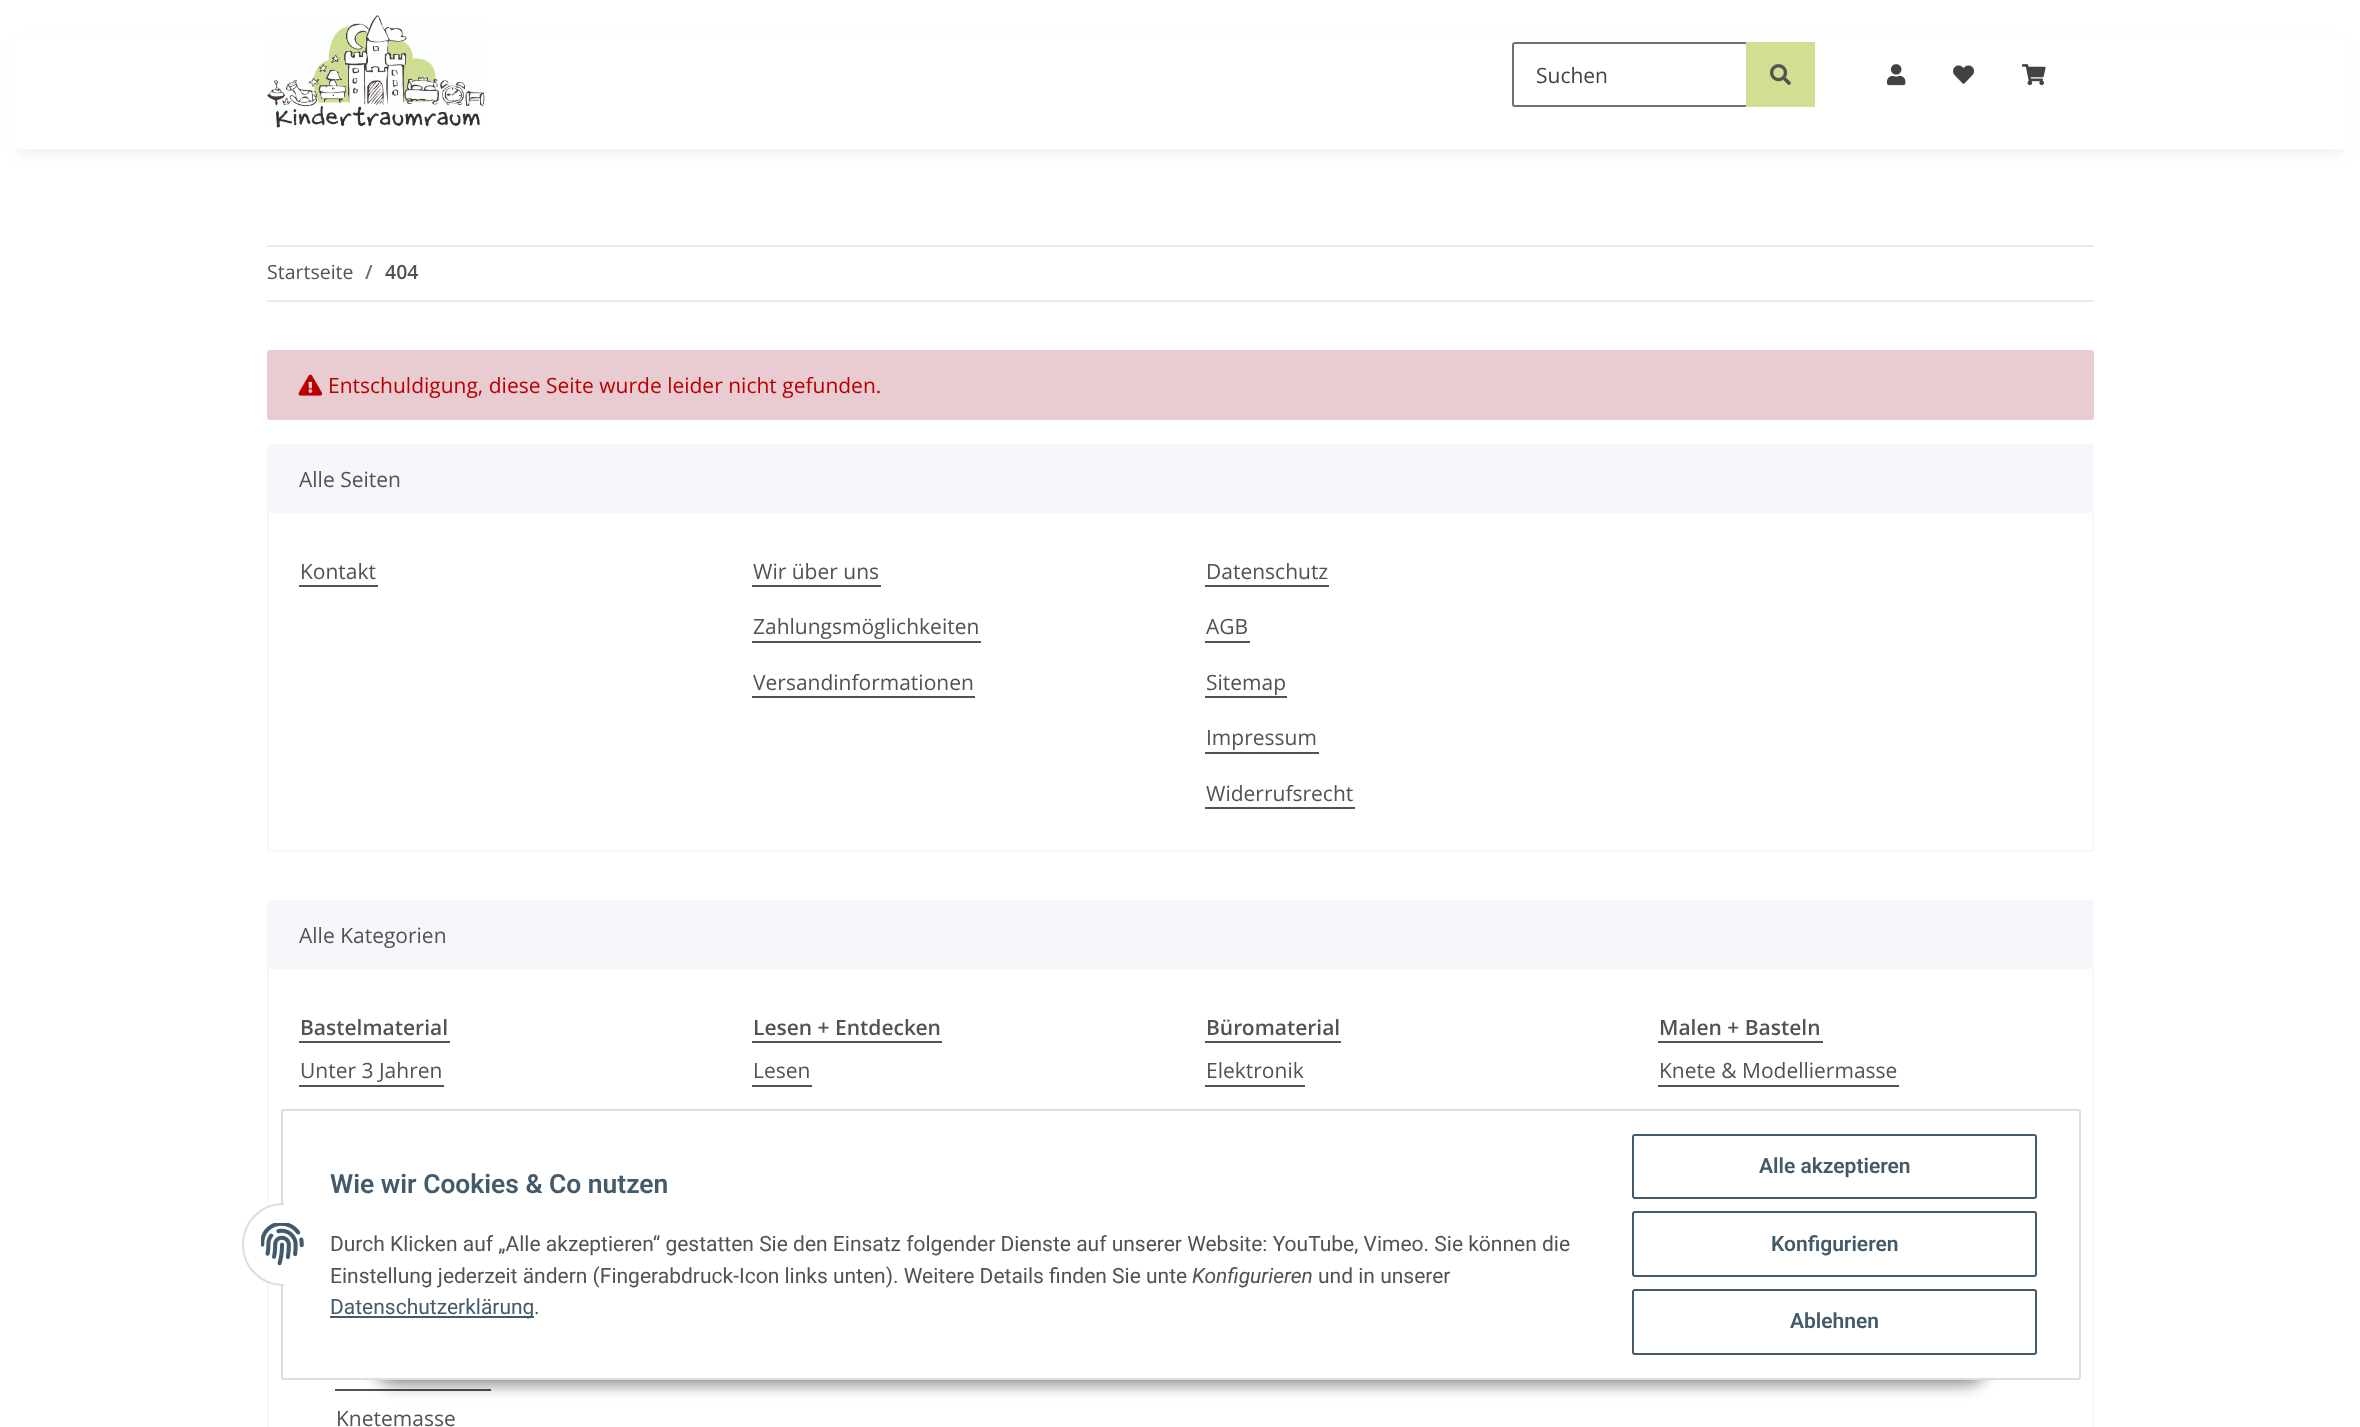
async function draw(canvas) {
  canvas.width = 2360;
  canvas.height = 1427;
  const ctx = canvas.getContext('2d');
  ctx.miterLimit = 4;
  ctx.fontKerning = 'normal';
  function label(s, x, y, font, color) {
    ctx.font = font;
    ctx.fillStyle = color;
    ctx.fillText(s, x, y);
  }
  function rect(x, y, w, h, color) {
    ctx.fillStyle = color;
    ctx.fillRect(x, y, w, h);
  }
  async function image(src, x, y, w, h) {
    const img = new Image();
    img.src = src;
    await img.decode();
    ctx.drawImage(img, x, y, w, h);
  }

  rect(0, 0, 2360, 1427, '#fff');
  ctx.fillStyle = '#0000000f';
  ctx.filter = 'blur(7px)';
  ctx.beginPath();
  ctx.rect(18, 42, 2325, 113);
  ctx.fill();
  ctx.filter = 'none';
  rect(11, 35, 2339, 114, '#fff');
  await image('assets/img1.png', 267, 15, 218, 113);
  ctx.beginPath();
  ctx.roundRect(1513, 43, 234, 63, 2);
  ctx.strokeStyle = '#707070';
  ctx.lineWidth = 2;
  ctx.stroke();
  label('Suchen', 1536, 83, '21px Open Sans', '#424241');
  rect(1746, 42, 69, 65, '#d0df92');
  await image('assets/img2.png', 1770, 64, 21, 22);
  await image('assets/img3.png', 1887, 64, 19, 22);
  await image('assets/img4.png', 1953, 65, 21, 19);
  await image('assets/img5.png', 2022, 64, 24, 22);
  rect(267, 245, 1827, 2, '#ebebeb');
  rect(267, 300, 1827, 2, '#ebebeb');
  label('Startseite', 267, 279, '19.5px Open Sans', '#525252');
  label('/', 365, 279, '600 19.5px Open Sans', '#707070');
  label('404', 385, 279, '600 19.5px Open Sans', '#525252');
  ctx.fillStyle = '#e8ccd2';
  ctx.beginPath();
  ctx.roundRect(268, 351, 1825, 68, 2);
  ctx.fill();
  ctx.strokeStyle = '#e8ccd2';
  ctx.stroke();
  await image('assets/img6.png', 298, 374, 25, 22);
  label('Entschuldigung, diese Seite wurde leider nicht gefunden.', 328, 393, '21px Open Sans', '#b90000');
  ctx.beginPath();
  ctx.roundRect(268, 445, 1825, 406, 2);
  ctx.strokeStyle = '#f5f7fa';
  ctx.stroke();
  ctx.fillStyle = '#f5f7fa';
  ctx.beginPath();
  ctx.roundRect(269, 446, 1824, 67, [1.5, 1.5, 0, 0]);
  ctx.fill();
  label('Alle Seiten', 299, 487, '21px Open Sans', '#525252');
  label('Kontakt', 300, 579, '21px Open Sans', '#525252');
  rect(299, 585, 79, 2, '#525252');
  label('Wir über uns', 753, 579, '21px Open Sans', '#525252');
  rect(752, 585, 129, 2, '#525252');
  label('Zahlungsmöglichkeiten', 753, 634, '21px Open Sans', '#525252');
  rect(752, 641, 229, 2, '#525252');
  label('Versandinformationen', 753, 690, '21px Open Sans', '#525252');
  rect(752, 696, 223, 2, '#525252');
  label('Datenschutz', 1206, 579, '21px Open Sans', '#525252');
  rect(1205, 585, 124, 2, '#525252');
  label('AGB', 1206, 634, '21px Open Sans', '#525252');
  rect(1205, 641, 45, 2, '#525252');
  label('Sitemap', 1206, 690, '21px Open Sans', '#525252');
  rect(1205, 696, 82, 2, '#525252');
  label('Impressum', 1206, 745, '21px Open Sans', '#525252');
  rect(1205, 752, 114, 2, '#525252');
  label('Widerrufsrecht', 1206, 801, '21px Open Sans', '#525252');
  rect(1205, 807, 150, 2, '#525252');
  ctx.beginPath();
  ctx.roundRect(268, 901, 1825, 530, 2);
  ctx.stroke();
  ctx.fillStyle = '#f5f7fa';
  ctx.beginPath();
  ctx.roundRect(269, 902, 1824, 67, [1.5, 1.5, 0, 0]);
  ctx.fill();
  label('Alle Kategorien', 299, 943, '21px Open Sans', '#525252');
  label('Bastelmaterial', 300, 1035, '600 21px Open Sans', '#525252');
  rect(299, 1041, 151, 2, '#525252');
  label('Unter 3 Jahren', 300, 1078, '21px Open Sans', '#525252');
  rect(299, 1085, 145, 2, '#525252');
  rect(335, 1389, 156, 2, '#525252');
  label('Knetemasse', 336, 1426, '21px Open Sans', '#525252');
  label('Lesen + Entdecken', 753, 1035, '600 21px Open Sans', '#525252');
  rect(752, 1041, 190, 2, '#525252');
  label('Lesen', 753, 1078, '21px Open Sans', '#525252');
  rect(752, 1085, 60, 2, '#525252');
  label('Büromaterial', 1206, 1035, '600 21px Open Sans', '#525252');
  rect(1205, 1041, 136, 2, '#525252');
  label('Elektronik', 1206, 1078, '21px Open Sans', '#525252');
  rect(1205, 1085, 100, 2, '#525252');
  label('Malen + Basteln', 1659, 1035, '600 21px Open Sans', '#525252');
  rect(1658, 1041, 165, 2, '#525252');
  label('Knete & Modelliermasse', 1659, 1078, '21px Open Sans', '#525252');
  rect(1658, 1085, 241, 2, '#525252');
  ctx.fillStyle = '#00000073';
  ctx.filter = 'blur(7.5px)';
  ctx.beginPath();
  ctx.roundRect(372, 1337, 1617, 48, 24);
  ctx.fill();
  ctx.filter = 'none';
  ctx.fillStyle = '#fff';
  ctx.beginPath();
  ctx.roundRect(282, 1110, 1798, 269, 2);
  ctx.fill();
  ctx.strokeStyle = '#ddd';
  ctx.stroke();
  ctx.beginPath();
  ctx.roundRect(243, 1204, 80, 81, 40);
  ctx.fill();
  ctx.stroke();
  rect(284, 1203, 40, 83, '#fff');
  await image('assets/img7.png', 261, 1223, 43, 43);
  label('Wie wir Cookies & Co nutzen', 330, 1193, '600 26.4px Roboto', '#435a6b');
  label('Durch Klicken auf „Alle akzeptieren“ gestatten Sie den Einsatz folgender Dienste auf unserer Website: YouTube, Vimeo. Sie können die', 330, 1251, '21px Roboto', '#525252');
  label('Einstellung jederzeit ändern (Fingerabdruck-Icon links unten). Weitere Details finden Sie unte', 330, 1283, '21px Roboto', '#525252');
  label('Konfigurieren', 1192, 1283, 'italic 21px Roboto', '#525252');
  label('und in unserer', 1318, 1283, '21px Roboto', '#525252');
  rect(330, 1316, 204, 2, '#435a6b');
  label('Datenschutzerklärung', 330, 1314, '21px Roboto', '#435a6b');
  label('.', 534, 1314, '21px Roboto', '#525252');
  ctx.beginPath();
  ctx.roundRect(1633, 1135, 403, 63, 2);
  ctx.strokeStyle = '#435a6b';
  ctx.stroke();
  label('Alle akzeptieren', 1759, 1173, '600 21px Roboto', '#435a6b');
  ctx.beginPath();
  ctx.roundRect(1633, 1212, 403, 64, 2);
  ctx.stroke();
  label('Konfigurieren', 1771, 1251, '600 21px Roboto', '#435a6b');
  ctx.beginPath();
  ctx.roundRect(1633, 1290, 403, 64, 2);
  ctx.stroke();
  label('Ablehnen', 1790, 1328, '600 21px Roboto', '#435a6b');
}

draw(document.querySelector('canvas'));
